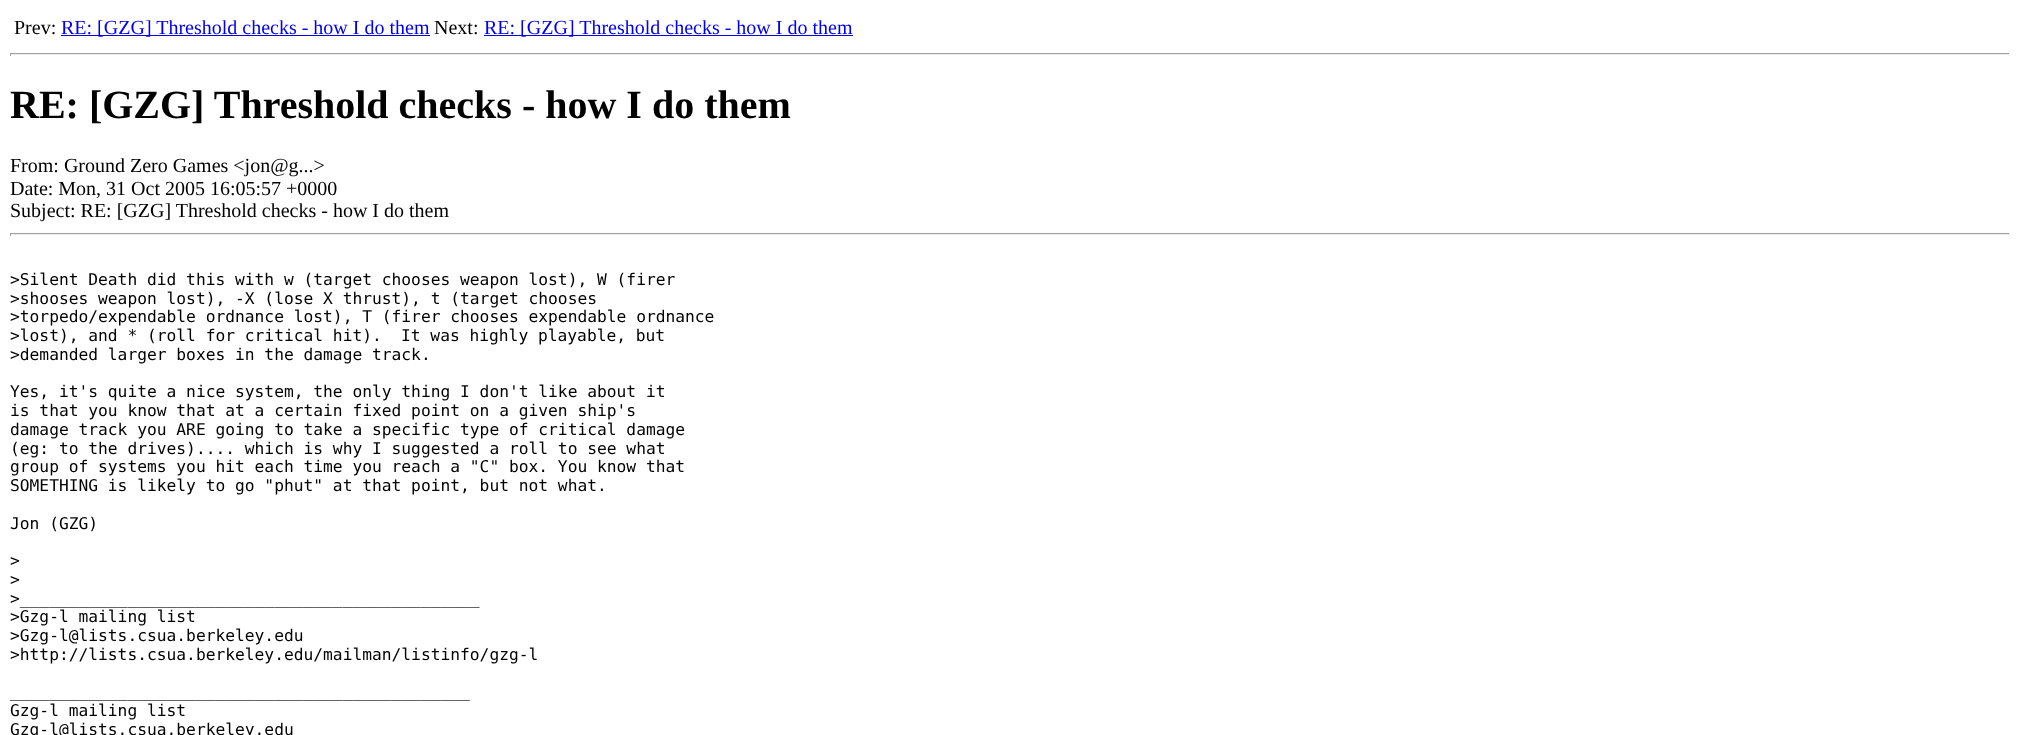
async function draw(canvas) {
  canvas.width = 2020;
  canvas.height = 735;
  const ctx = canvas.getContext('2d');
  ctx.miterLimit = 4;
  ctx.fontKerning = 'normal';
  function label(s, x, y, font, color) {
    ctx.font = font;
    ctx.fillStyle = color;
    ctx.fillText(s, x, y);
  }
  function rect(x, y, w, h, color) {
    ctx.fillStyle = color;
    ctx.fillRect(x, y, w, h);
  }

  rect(0, 0, 2020, 735, '#fff');
  label('Prev:', 14, 34, '20px Liberation Serif', '#000');
  rect(61, 35, 369, 1, '#00e');
  label('RE: [GZG] Threshold checks - how I do them', 61, 34, '20px Liberation Serif', '#00e');
  label('Next:', 434, 34, '20px Liberation Serif', '#000');
  rect(484, 35, 369, 1, '#00e');
  label('RE: [GZG] Threshold checks - how I do them', 484, 34, '20px Liberation Serif', '#00e');
  rect(10, 53, 2000, 1, '#9f9f9f');
  rect(2009, 53, 1, 3, '#eee');
  rect(10, 54, 2000, 1, '#eee');
  rect(10, 53, 1, 3, '#9f9f9f');
  label('RE: [GZG] Threshold checks - how I do them', 10, 118, 'bold 40px Liberation Serif', '#000');
  label('From: Ground Zero Games <jon@g...>', 10, 172, '20px Liberation Serif', '#000');
  label('Date: Mon, 31 Oct 2005 16:05:57 +0000', 10, 195, '20px Liberation Serif', '#000');
  label('Subject: RE: [GZG] Threshold checks - how I do them', 10, 217, '20px Liberation Serif', '#000');
  rect(10, 233, 2000, 1, '#9f9f9f');
  rect(2009, 233, 1, 3, '#eee');
  rect(10, 234, 2000, 1, '#eee');
  rect(10, 233, 1, 3, '#9f9f9f');
  label('>Silent Death did this with w (target chooses weapon lost), W (firer', 10, 285, '16.25px DejaVu Sans Mono', '#000');
  label('>shooses weapon lost), -X (lose X thrust), t (target chooses', 10, 304, '16.25px DejaVu Sans Mono', '#000');
  label('>torpedo/expendable ordnance lost), T (firer chooses expendable ordnance', 10, 322, '16.25px DejaVu Sans Mono', '#000');
  label('>lost), and * (roll for critical hit).', 10, 341, '16.25px DejaVu Sans Mono', '#000');
  label('It was highly playable, but', 401, 341, '16.25px DejaVu Sans Mono', '#000');
  label('>demanded larger boxes in the damage track.', 10, 360, '16.25px DejaVu Sans Mono', '#000');
  label('Yes, it\'s quite a nice system, the only thing I don\'t like about it', 10, 397, '16.25px DejaVu Sans Mono', '#000');
  label('is that you know that at a certain fixed point on a given ship\'s', 10, 416, '16.25px DejaVu Sans Mono', '#000');
  label('damage track you ARE going to take a specific type of critical damage', 10, 435, '16.25px DejaVu Sans Mono', '#000');
  label('(eg: to the drives).... which is why I suggested a roll to see what', 10, 454, '16.25px DejaVu Sans Mono', '#000');
  label('group of systems you hit each time you reach a "C" box. You know that', 10, 472, '16.25px DejaVu Sans Mono', '#000');
  label('SOMETHING is likely to go "phut" at that point, but not what.', 10, 491, '16.25px DejaVu Sans Mono', '#000');
  label('Jon (GZG)', 10, 529, '16.25px DejaVu Sans Mono', '#000');
  label('>', 10, 566, '16.25px DejaVu Sans Mono', '#000');
  label('>', 10, 585, '16.25px DejaVu Sans Mono', '#000');
  label('>_______________________________________________', 10, 604, '16.25px DejaVu Sans Mono', '#000');
  label('>Gzg-l mailing list', 10, 622, '16.25px DejaVu Sans Mono', '#000');
  label('>Gzg-l@lists.csua.berkeley.edu', 10, 641, '16.25px DejaVu Sans Mono', '#000');
  label('>http://lists.csua.berkeley.edu/mailman/listinfo/gzg-l', 10, 660, '16.25px DejaVu Sans Mono', '#000');
  label('_______________________________________________', 10, 697, '16.25px DejaVu Sans Mono', '#000');
  label('Gzg-l mailing list', 10, 716, '16.25px DejaVu Sans Mono', '#000');
  label('Gzg-l@lists.csua.berkeley.edu', 10, 735, '16.25px DejaVu Sans Mono', '#000');
}

draw(document.querySelector('canvas'));
